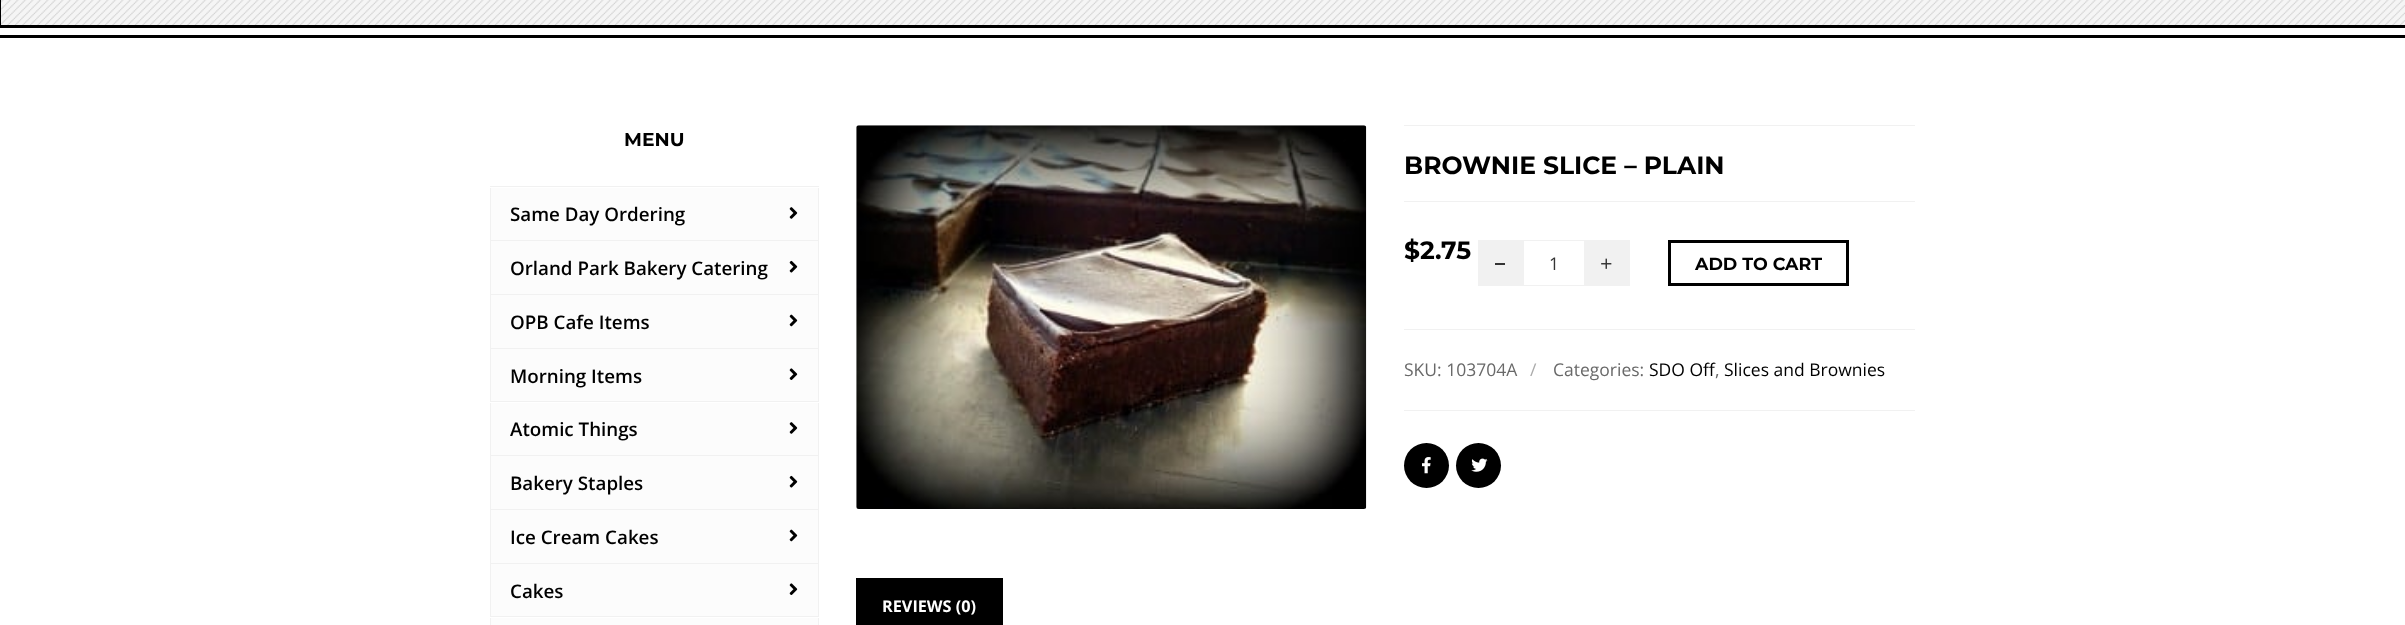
async function draw(canvas) {
  canvas.width = 2405;
  canvas.height = 625;
  const ctx = canvas.getContext('2d');
  ctx.miterLimit = 4;
  ctx.fontKerning = 'normal';
  function label(s, x, y, font, color) {
    ctx.font = font;
    ctx.fillStyle = color;
    ctx.fillText(s, x, y);
  }
  function rect(x, y, w, h, color) {
    ctx.fillStyle = color;
    ctx.fillRect(x, y, w, h);
  }
  async function image(src, x, y, w, h) {
    const img = new Image();
    img.src = src;
    await img.decode();
    ctx.drawImage(img, x, y, w, h);
  }

  rect(0, 0, 2405, 625, '#fff');
  rect(1, 0, 2404, 25, '#f5f5f5');
  await image('assets/img1.png', 1, 0, 2404, 25);
  ctx.strokeStyle = '#000';
  ctx.lineWidth = 13;
  ctx.strokeRect(-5.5, -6.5, 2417, 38);
  ctx.strokeStyle = '#fff';
  ctx.lineWidth = 10;
  ctx.strokeRect(-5, -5, 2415, 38);
  ctx.strokeStyle = '#000';
  ctx.lineWidth = 3;
  ctx.strokeRect(-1.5, -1.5, 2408, 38);
  label('MENU', 624, 146, 'bold 18.75px Montserrat', '#000');
  rect(490, 186, 329, 1, '#f1f1f1');
  rect(490, 240, 329, 1, '#f1f1f1');
  rect(491, 188, 327, 52, '#fcfcfc');
  rect(818, 188, 1, 52, '#f1f1f1');
  rect(490, 188, 1, 52, '#f1f1f1');
  label('Same Day Ordering', 510, 221, '600 18.75px Open Sans', '#000');
  await image('assets/img2.png', 789, 207, 9, 12);
  rect(490, 294, 329, 1, '#f1f1f1');
  rect(491, 241, 327, 53, '#fcfcfc');
  rect(818, 241, 1, 53, '#f1f1f1');
  rect(490, 241, 1, 53, '#f1f1f1');
  label('Orland Park Bakery Catering', 510, 275, '600 18.75px Open Sans', '#000');
  await image('assets/img3.png', 789, 260, 9, 13);
  rect(490, 348, 329, 1, '#f1f1f1');
  rect(491, 295, 327, 53, '#fcfcfc');
  rect(818, 295, 1, 53, '#f1f1f1');
  rect(490, 295, 1, 53, '#f1f1f1');
  label('OPB Cafe Items', 510, 329, '600 18.75px Open Sans', '#000');
  await image('assets/img4.png', 789, 314, 9, 13);
  rect(490, 401, 329, 1, '#f1f1f1');
  rect(491, 349, 327, 52, '#fcfcfc');
  rect(818, 349, 1, 52, '#f1f1f1');
  rect(490, 349, 1, 52, '#f1f1f1');
  label('Morning Items', 510, 383, '600 18.75px Open Sans', '#000');
  await image('assets/img5.png', 789, 368, 9, 12);
  rect(490, 455, 329, 1, '#f1f1f1');
  rect(491, 403, 327, 52, '#fcfcfc');
  rect(818, 403, 1, 52, '#f1f1f1');
  rect(490, 403, 1, 52, '#f1f1f1');
  label('Atomic Things', 510, 436, '600 18.75px Open Sans', '#000');
  await image('assets/img2.png', 789, 422, 9, 12);
  rect(490, 509, 329, 1, '#f1f1f1');
  rect(491, 456, 327, 53, '#fcfcfc');
  rect(818, 456, 1, 53, '#f1f1f1');
  rect(490, 456, 1, 53, '#f1f1f1');
  label('Bakery Staples', 510, 490, '600 18.75px Open Sans', '#000');
  await image('assets/img3.png', 789, 475, 9, 13);
  rect(490, 563, 329, 1, '#f1f1f1');
  rect(491, 510, 327, 53, '#fcfcfc');
  rect(818, 510, 1, 53, '#f1f1f1');
  rect(490, 510, 1, 53, '#f1f1f1');
  label('Ice Cream Cakes', 510, 544, '600 18.75px Open Sans', '#000');
  await image('assets/img4.png', 789, 529, 9, 13);
  rect(490, 616, 329, 1, '#f1f1f1');
  rect(491, 564, 327, 52, '#fcfcfc');
  rect(818, 564, 1, 52, '#f1f1f1');
  rect(490, 564, 1, 52, '#f1f1f1');
  label('Cakes', 510, 598, '600 18.75px Open Sans', '#000');
  await image('assets/img5.png', 789, 583, 9, 12);
  rect(490, 618, 329, 7, '#fcfcfc');
  rect(818, 618, 1, 7, '#f1f1f1');
  rect(490, 618, 1, 7, '#f1f1f1');
  await image('assets/img6.png', 856, 125, 511, 384);
  rect(1404, 125, 511, 1, '#f1f1f1');
  rect(1404, 201, 511, 1, '#f1f1f1');
  label('BROWNIE SLICE – PLAIN', 1404, 174, 'bold 25px Montserrat', '#000');
  label('$2.75', 1404, 259, 'bold 25px Montserrat', '#000');
  rect(1478, 240, 45, 46, '#f1f1f1');
  rect(1495, 263, 10, 2, '#343434');
  ctx.strokeStyle = '#f1f1f1';
  ctx.lineWidth = 1;
  ctx.strokeRect(1523.5, 240.5, 61, 45);
  label('1', 1549, 270, '17.5px Open Sans', '#343434');
  rect(1585, 240, 45, 46, '#f1f1f1');
  await image('assets/img7.png', 1601, 258, 11, 11);
  ctx.strokeStyle = '#000';
  ctx.lineWidth = 3;
  ctx.strokeRect(1669.5, 241.5, 178, 43);
  label('ADD TO CART', 1695, 270, 'bold 17.5px Montserrat', '#000');
  rect(1404, 329, 511, 1, '#f1f1f1');
  label('SKU: 103704A', 1404, 376, '17.5px Open Sans', '#696969');
  label('/', 1530, 376, '17.5px Open Sans', '#aaa');
  label('Categories:', 1553, 376, '17.5px Open Sans', '#696969');
  label('SDO Off', 1649, 376, '17.5px Open Sans', '#000');
  label(',', 1715, 376, '17.5px Open Sans', '#696969');
  label('Slices and Brownies', 1724, 376, '17.5px Open Sans', '#000');
  rect(1404, 410, 511, 1, '#f1f1f1');
  ctx.fillStyle = '#000';
  ctx.beginPath();
  ctx.arc(1426.5, 465.5, 22.5, 0, 2 * Math.PI);
  ctx.fill();
  await image('assets/img8.png', 1422, 457, 9, 17);
  ctx.beginPath();
  ctx.arc(1478.5, 465.5, 22.5, 0, 2 * Math.PI);
  ctx.fill();
  await image('assets/img9.png', 1471, 458, 17, 14);
  rect(856, 578, 147, 47, '#000');
  label('REVIEWS (0)', 882, 612, 'bold 16.25px Open Sans', '#fff');
}

draw(document.querySelector('canvas'));
